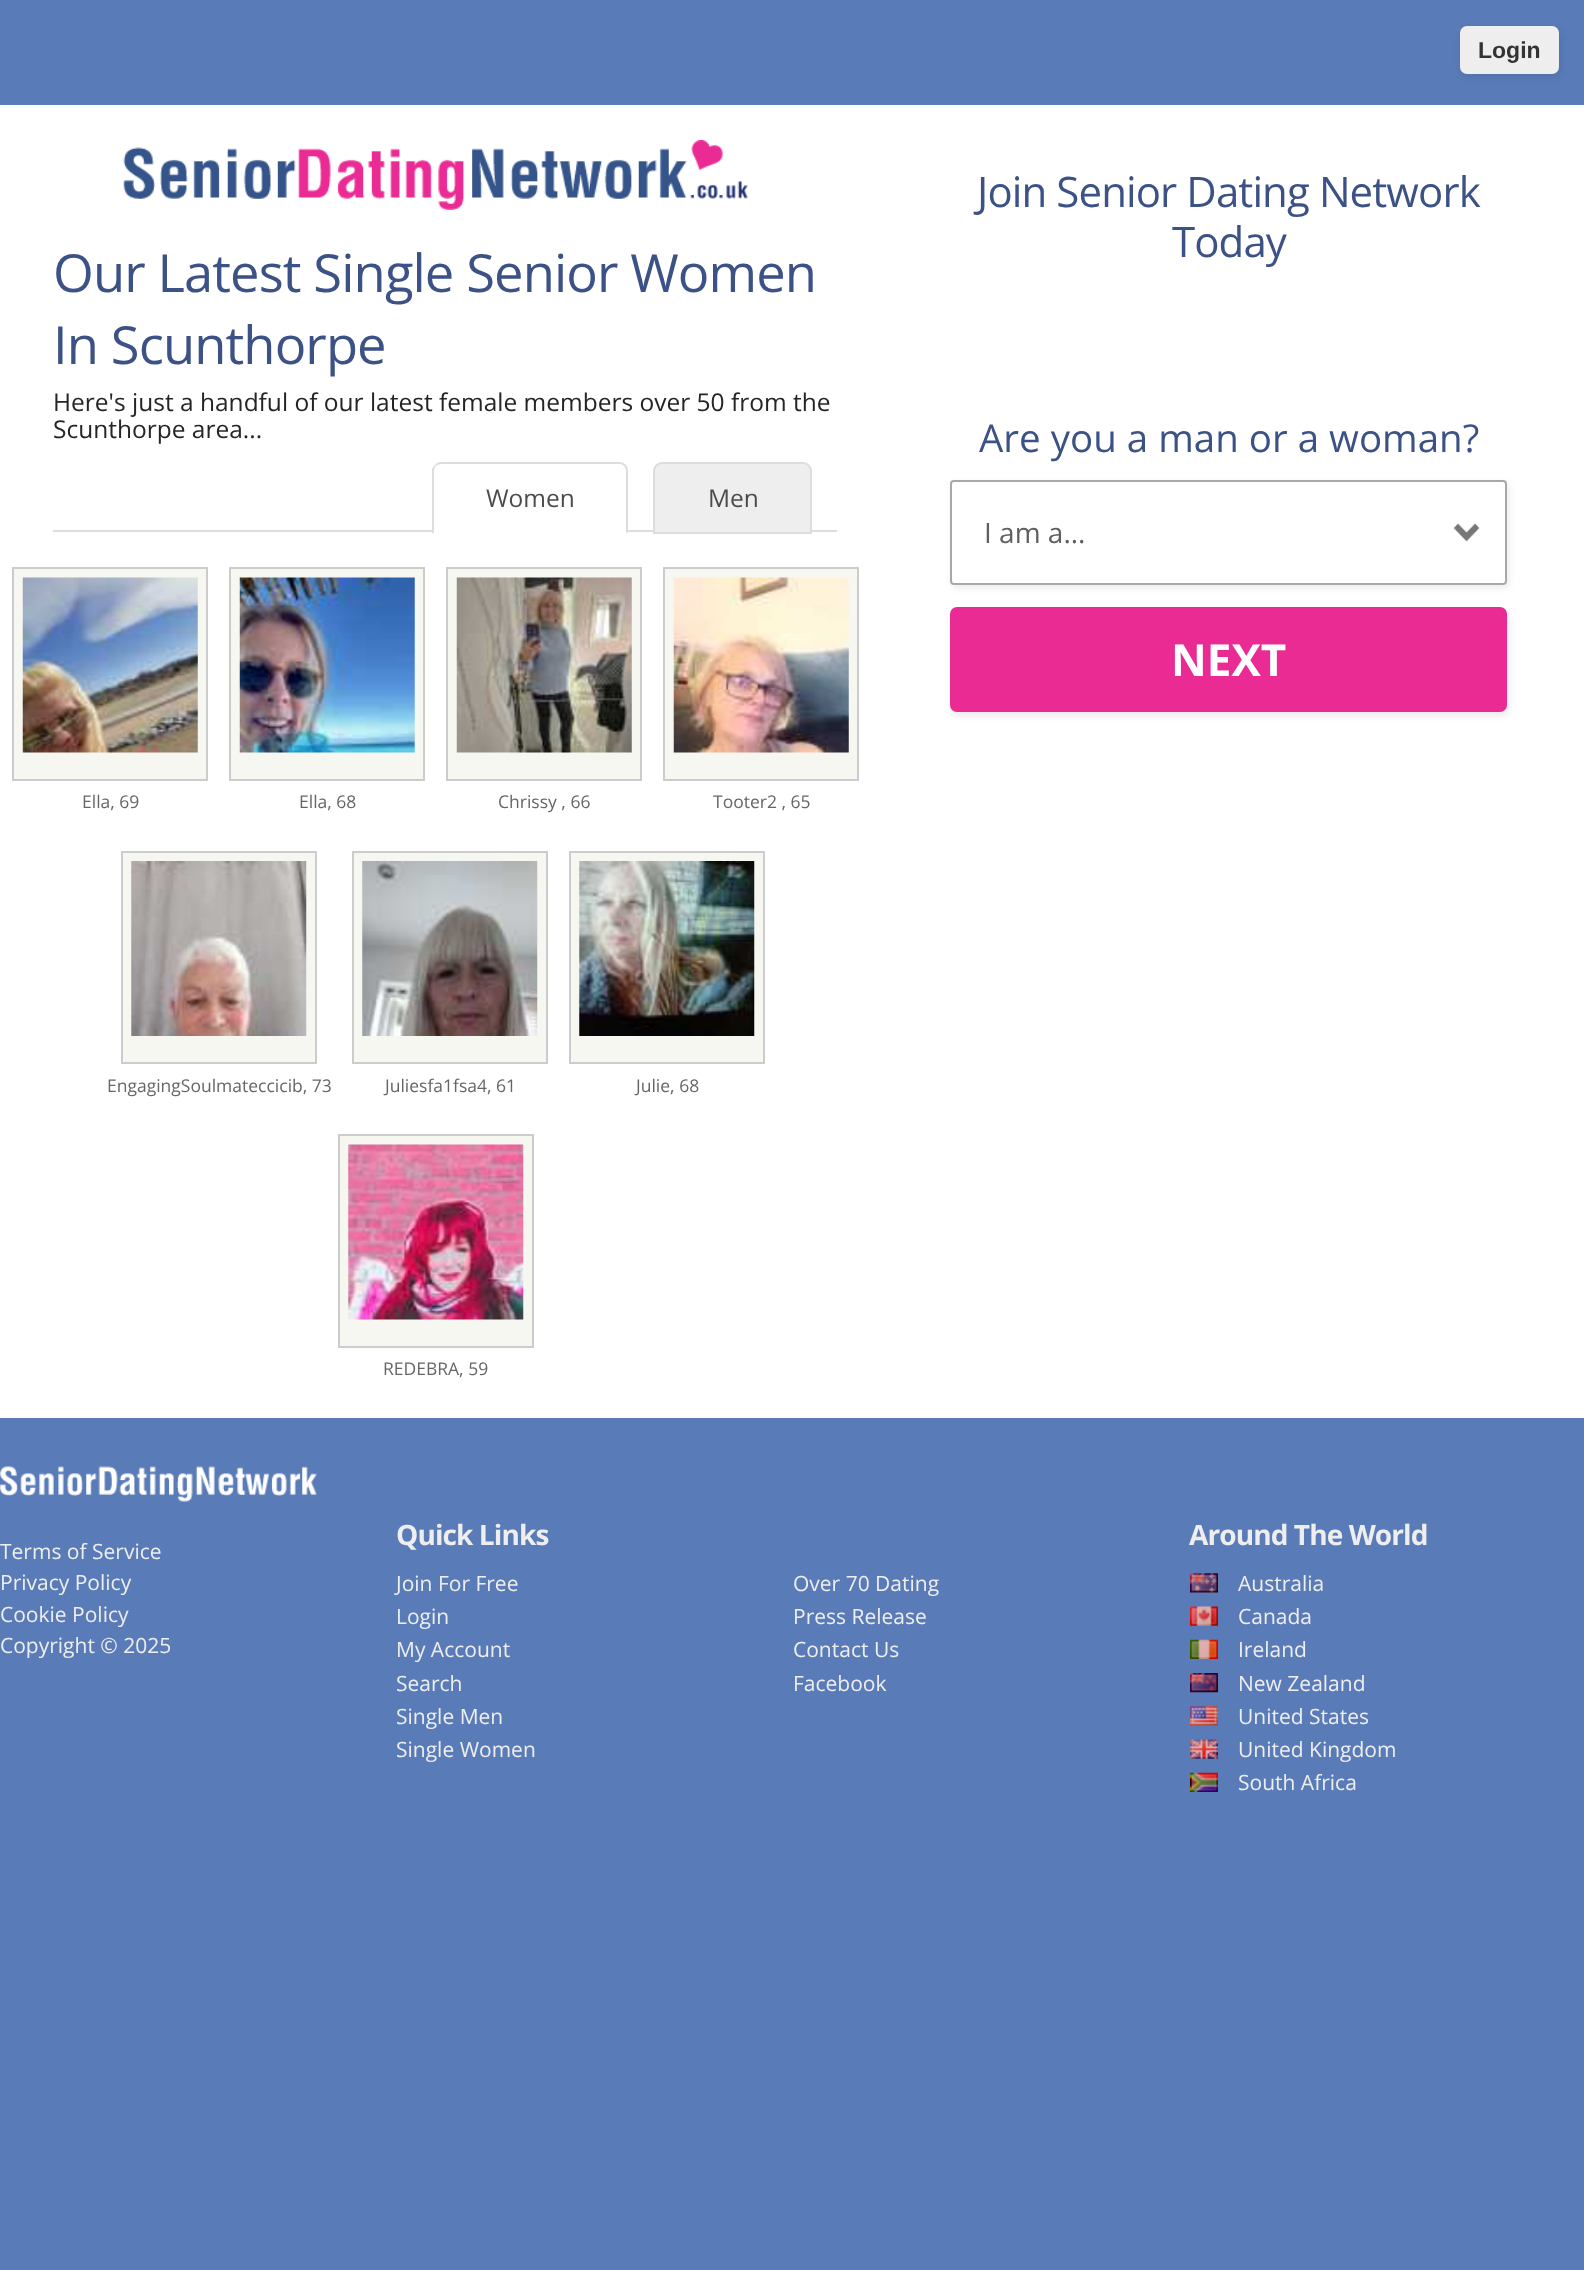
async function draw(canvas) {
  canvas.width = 1584;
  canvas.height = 2270;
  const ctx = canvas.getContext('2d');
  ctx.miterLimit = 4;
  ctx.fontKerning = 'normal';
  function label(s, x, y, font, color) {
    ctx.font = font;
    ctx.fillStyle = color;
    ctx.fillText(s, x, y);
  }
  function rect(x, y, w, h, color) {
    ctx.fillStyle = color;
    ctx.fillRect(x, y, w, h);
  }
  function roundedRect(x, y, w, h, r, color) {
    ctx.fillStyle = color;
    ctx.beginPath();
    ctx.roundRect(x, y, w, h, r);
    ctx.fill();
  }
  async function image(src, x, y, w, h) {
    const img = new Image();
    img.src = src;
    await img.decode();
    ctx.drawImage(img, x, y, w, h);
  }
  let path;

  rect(0, 0, 1584, 2270, '#597bb8');
  ctx.fillStyle = '#00000014';
  ctx.filter = 'blur(3.5px)';
  ctx.beginPath();
  ctx.roundRect(1461, 30, 100, 47, 7);
  ctx.fill();
  ctx.filter = 'none';
  roundedRect(1460, 26, 99, 48, 7, '#eee');
  label('Login', 1478, 58, 'bold 23px Liberation Sans', '#333');
  rect(0, 105, 1584, 1313, '#fff');
  await image('assets/img1.png', 123, 140, 625, 70);
  ctx.letterSpacing = '-0.9px';
  label('Our Latest Single Senior Women', 53, 292, '52.5px Open Sans', '#3c5286');
  label('In Scunthorpe', 53, 364, '52.5px Open Sans', '#3c5286');
  ctx.letterSpacing = '0px';
  label('Here\'s just a handful of our latest female members over 50 from the', 53, 411, '24.5px Open Sans', '#252525');
  label('Scunthorpe area...', 53, 438, '24.5px Open Sans', '#252525');
  rect(53, 530, 784, 2, '#ddd');
  ctx.fillStyle = '#fff';
  ctx.beginPath();
  ctx.roundRect(432, 462, 196, 72, [9, 9, 0, 0]);
  ctx.fill();
  label('Women', 486, 507, '24.5px Open Sans', '#4c4c4c');
  ctx.fillStyle = '#ddd';
  path = new Path2D('M441 462C439 462 436 463 435 465L436 466C437 465 439 464 441 464H620C622 464 623 465 624 466L626 465C624 463 622 462 620 462Z');
  ctx.fill(path);
  path = new Path2D('M626 465C627 466 628 469 628 471V534L626 532V471C626 469 625 467 624 466Z');
  ctx.fill(path);
  ctx.fillStyle = '#fff';
  path = new Path2D('M628 534H432L434 532H626Z');
  ctx.fill(path);
  ctx.fillStyle = '#ddd';
  path = new Path2D('M432 534V469C433 467 434 466 435 465L436 466C435 467 434 469 434 471V532Z');
  ctx.fill(path);
  ctx.fillStyle = '#eee';
  ctx.beginPath();
  ctx.roundRect(654, 463, 157, 70, [8, 8, 0, 0]);
  ctx.fill();
  ctx.strokeStyle = '#ddd';
  ctx.lineWidth = 2;
  ctx.stroke();
  label('Men', 708, 507, '24.5px Open Sans', '#4c4c4c');
  ctx.fillStyle = '#f7f7f2';
  ctx.beginPath();
  ctx.rect(13, 568, 194, 212);
  ctx.fill();
  ctx.strokeStyle = '#ccc';
  ctx.stroke();
  await image('assets/img2.png', 22, 577, 176, 176);
  label('Ella, 69', 82, 808, '17.5px Open Sans', '#666');
  ctx.fillStyle = '#f7f7f2';
  ctx.beginPath();
  ctx.rect(230, 568, 194, 212);
  ctx.fill();
  ctx.stroke();
  await image('assets/img3.png', 239, 577, 176, 176);
  label('Ella, 68', 299, 808, '17.5px Open Sans', '#666');
  ctx.fillStyle = '#f7f7f2';
  ctx.beginPath();
  ctx.rect(447, 568, 194, 212);
  ctx.fill();
  ctx.stroke();
  await image('assets/img4.png', 456, 577, 176, 176);
  label('Chrissy , 66', 498, 808, '17.5px Open Sans', '#666');
  ctx.fillStyle = '#f7f7f2';
  ctx.beginPath();
  ctx.rect(664, 568, 194, 212);
  ctx.fill();
  ctx.stroke();
  await image('assets/img5.png', 673, 577, 176, 176);
  label('Tooter2 , 65', 713, 808, '17.5px Open Sans', '#666');
  ctx.fillStyle = '#f7f7f2';
  ctx.beginPath();
  ctx.rect(122, 852, 194, 211);
  ctx.fill();
  ctx.stroke();
  await image('assets/img6.png', 131, 861, 176, 175);
  label('EngagingSoulmateccicib, 73', 107, 1092, '17.5px Open Sans', '#666');
  ctx.fillStyle = '#f7f7f2';
  ctx.beginPath();
  ctx.rect(353, 852, 194, 211);
  ctx.fill();
  ctx.stroke();
  await image('assets/img7.png', 362, 861, 176, 175);
  label('Juliesfa1fsa4, 61', 385, 1092, '17.5px Open Sans', '#666');
  ctx.fillStyle = '#f7f7f2';
  ctx.beginPath();
  ctx.rect(570, 852, 194, 211);
  ctx.fill();
  ctx.stroke();
  await image('assets/img8.png', 579, 861, 176, 175);
  label('Julie, 68', 636, 1092, '17.5px Open Sans', '#666');
  ctx.fillStyle = '#f7f7f2';
  ctx.beginPath();
  ctx.rect(339, 1135, 194, 212);
  ctx.fill();
  ctx.stroke();
  await image('assets/img9.png', 348, 1144, 176, 176);
  label('REDEBRA, 59', 383, 1375, '17.5px Open Sans', '#666');
  ctx.letterSpacing = '-0.9px';
  label('Join Senior Dating Network', 977, 207, '42px Open Sans', '#3c5286');
  label('Today', 1172, 257, '42px Open Sans', '#3c5286');
  ctx.letterSpacing = '0px';
  label('Are you a man or a woman?', 979, 452, '38.5px Open Sans', '#3c5286');
  ctx.fillStyle = '#00000014';
  ctx.filter = 'blur(3.5px)';
  ctx.beginPath();
  ctx.roundRect(952, 483, 557, 105, 4);
  ctx.fill();
  ctx.filter = 'none';
  roundedRect(950, 480, 557, 105, 4, '#fff');
  await image('assets/img10.png', 1453, 523, 27, 19);
  ctx.beginPath();
  ctx.roundRect(951, 481, 555, 103, 3);
  ctx.strokeStyle = '#a8a8a8';
  ctx.stroke();
  label('I am a...', 984, 543, '28px Open Sans', '#5f5f5f');
  ctx.fillStyle = '#00000014';
  ctx.filter = 'blur(3.5px)';
  ctx.beginPath();
  ctx.roundRect(952, 611, 557, 105, 7);
  ctx.fill();
  ctx.filter = 'none';
  roundedRect(950, 607, 557, 105, 7, '#ea2b94');
  label('NEXT', 1171, 676, 'bold 44px Open Sans', '#fff');
  await image('assets/img11.png', 0, 1466, 317, 36);
  label('Terms of Service', 0, 1559, '21px Open Sans', '#eee');
  label('Privacy Policy', 0, 1590, '21px Open Sans', '#eee');
  label('Cookie Policy', 0, 1622, '21px Open Sans', '#eee');
  label('Copyright © 2025', 0, 1653, '21px Open Sans', '#eee');
  ctx.letterSpacing = '-0.9px';
  label('Quick Links', 396, 1545, 'bold 28px Open Sans', '#eee');
  ctx.letterSpacing = '0px';
  label('Join For Free', 396, 1591, '21px Open Sans', '#eee');
  label('Login', 396, 1624, '21px Open Sans', '#eee');
  label('My Account', 396, 1657, '21px Open Sans', '#eee');
  label('Search', 396, 1691, '21px Open Sans', '#eee');
  label('Single Men', 396, 1724, '21px Open Sans', '#eee');
  label('Single Women', 396, 1757, '21px Open Sans', '#eee');
  label('Over 70 Dating', 793, 1591, '21px Open Sans', '#eee');
  label('Press Release', 793, 1624, '21px Open Sans', '#eee');
  label('Contact Us', 793, 1657, '21px Open Sans', '#eee');
  label('Facebook', 793, 1691, '21px Open Sans', '#eee');
  ctx.letterSpacing = '-0.9px';
  label('Around The World', 1189, 1545, 'bold 28px Open Sans', '#eee');
  await image('assets/img12.png', 1190, 1573, 28, 20);
  ctx.letterSpacing = '0px';
  label('Australia', 1238, 1591, '21px Open Sans', '#eee');
  await image('assets/img13.png', 1190, 1606, 28, 20);
  label('Canada', 1238, 1624, '21px Open Sans', '#eee');
  await image('assets/img14.png', 1190, 1639, 28, 20);
  label('Ireland', 1238, 1657, '21px Open Sans', '#eee');
  await image('assets/img15.png', 1190, 1673, 28, 20);
  label('New Zealand', 1238, 1691, '21px Open Sans', '#eee');
  await image('assets/img16.png', 1190, 1706, 28, 20);
  label('United States', 1238, 1724, '21px Open Sans', '#eee');
  await image('assets/img17.png', 1190, 1739, 28, 20);
  label('United Kingdom', 1238, 1757, '21px Open Sans', '#eee');
  await image('assets/img18.png', 1190, 1772, 28, 20);
  label('South Africa', 1238, 1790, '21px Open Sans', '#eee');
}

draw(document.querySelector('canvas'));
